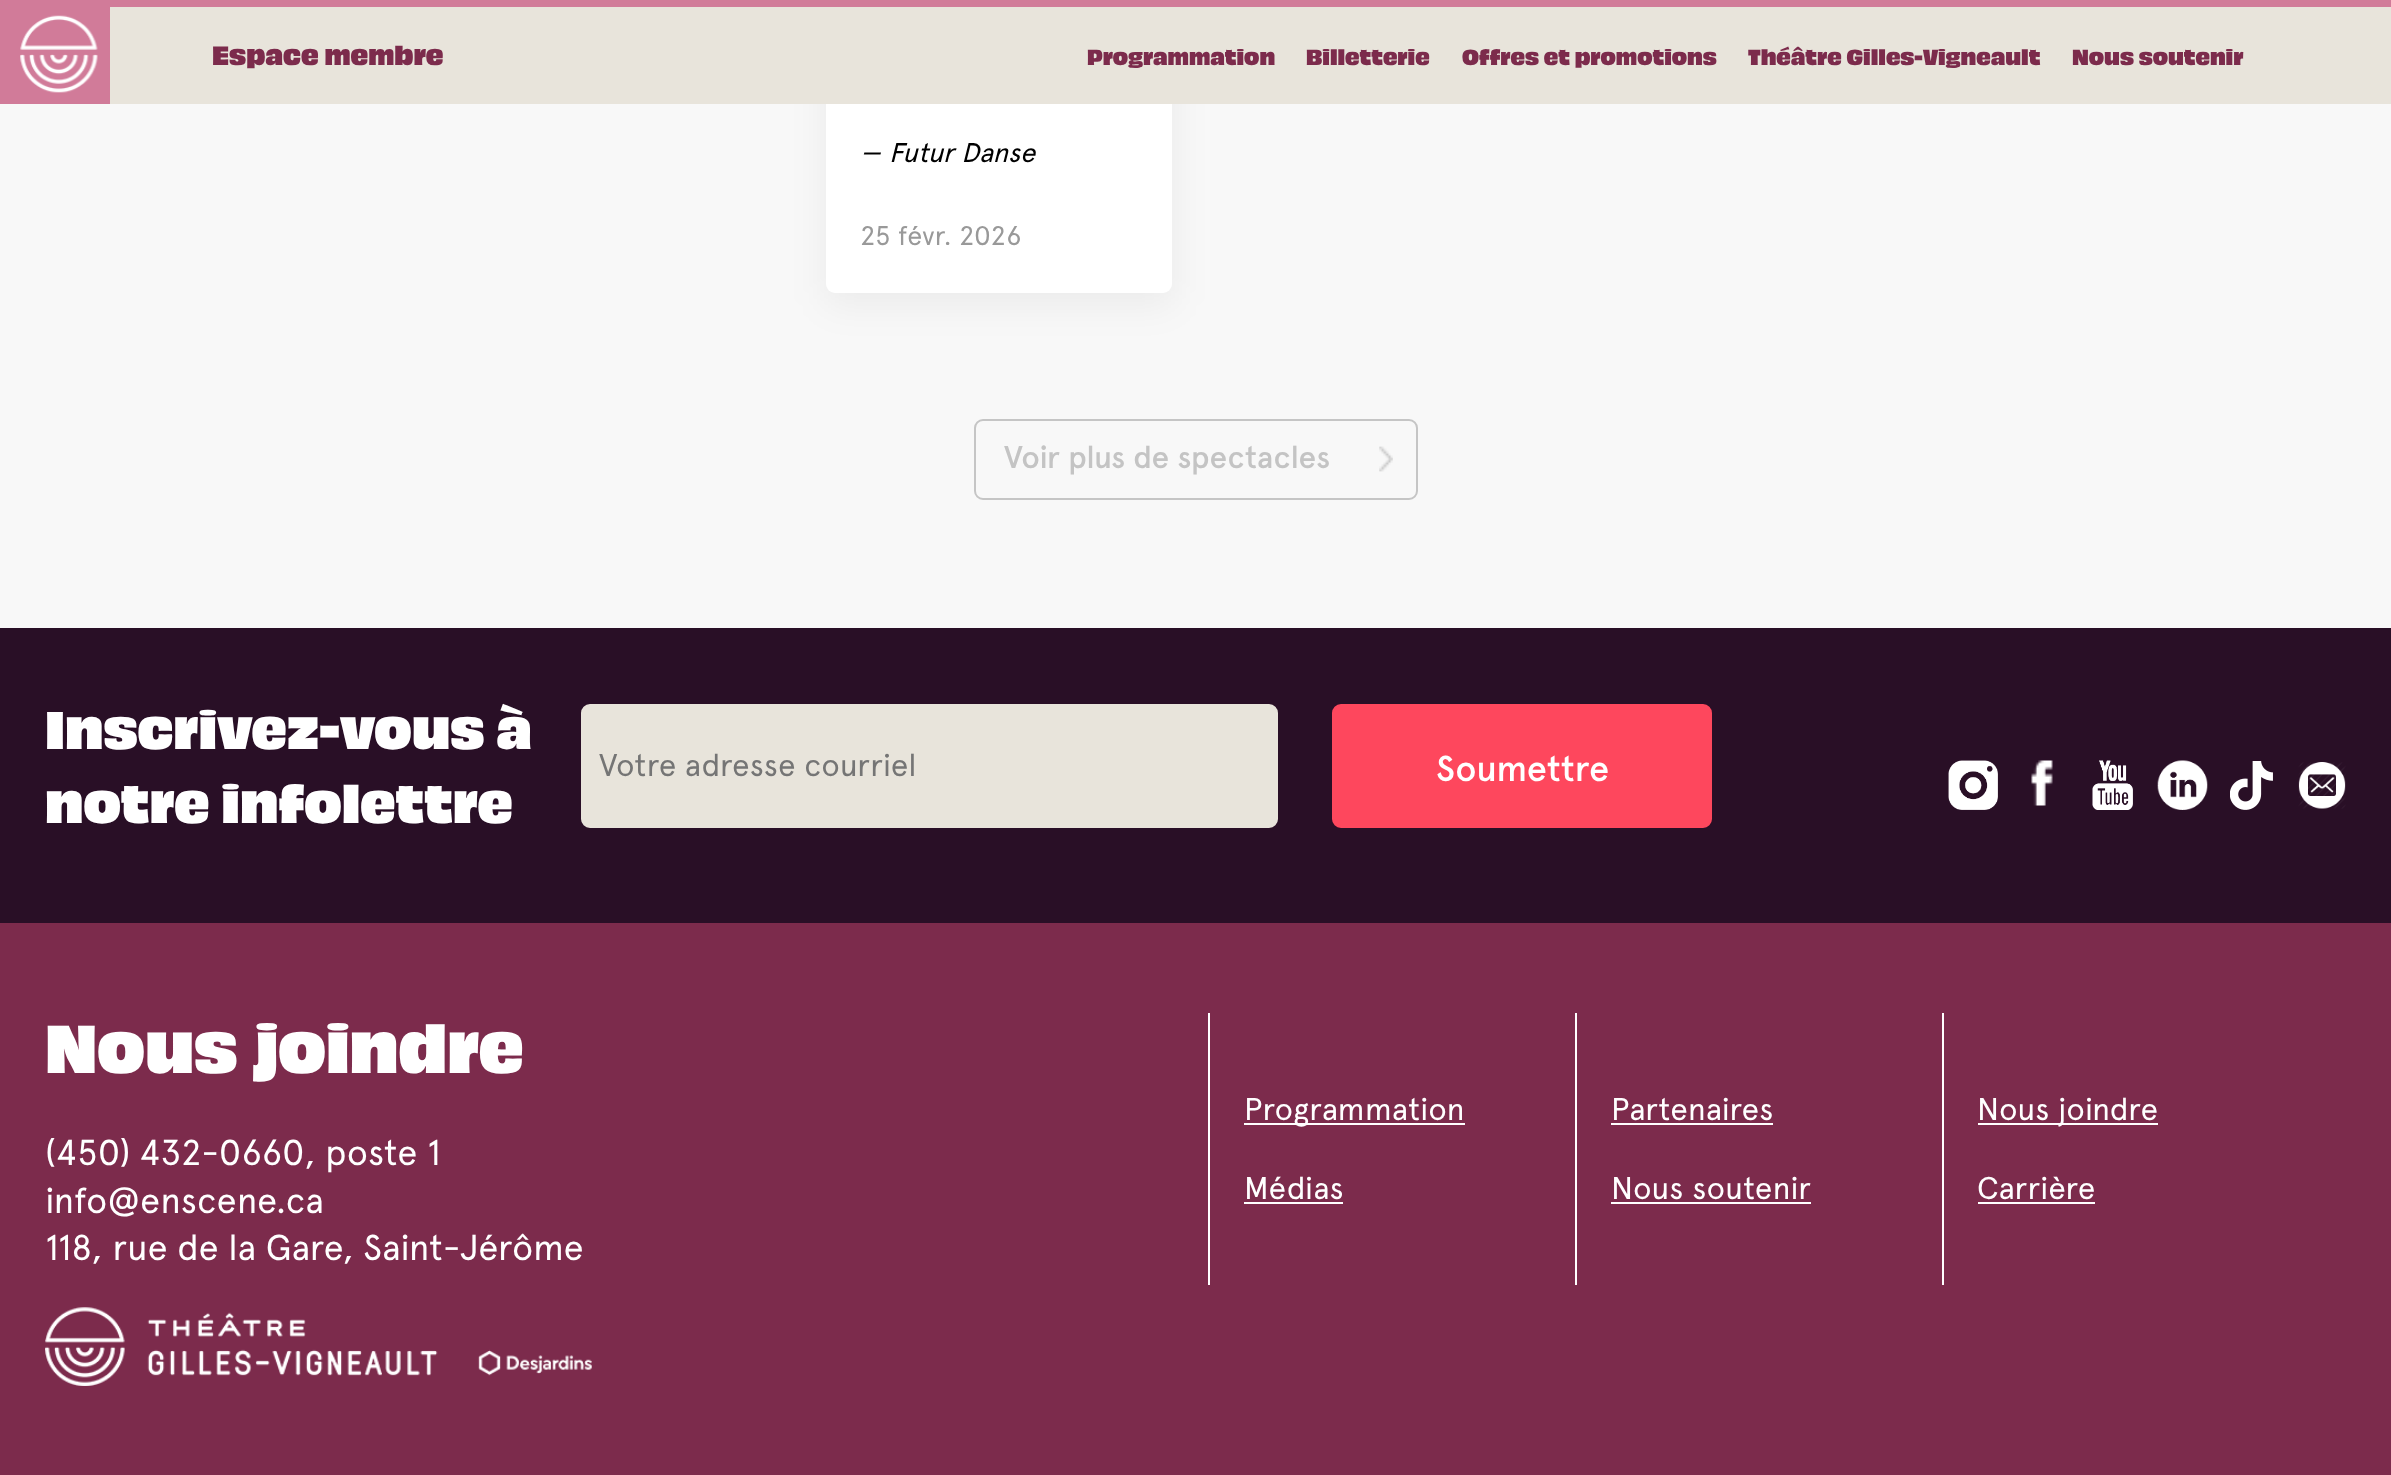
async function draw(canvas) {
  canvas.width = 2391;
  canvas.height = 1475;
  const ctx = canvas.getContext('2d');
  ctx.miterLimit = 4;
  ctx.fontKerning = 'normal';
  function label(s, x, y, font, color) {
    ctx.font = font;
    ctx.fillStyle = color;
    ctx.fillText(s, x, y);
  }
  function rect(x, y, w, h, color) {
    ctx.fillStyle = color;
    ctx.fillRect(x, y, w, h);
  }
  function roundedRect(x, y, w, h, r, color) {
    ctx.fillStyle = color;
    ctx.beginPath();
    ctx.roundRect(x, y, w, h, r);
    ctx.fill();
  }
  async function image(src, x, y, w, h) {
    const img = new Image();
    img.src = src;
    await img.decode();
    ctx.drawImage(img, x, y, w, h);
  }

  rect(0, 0, 2391, 1475, '#f8f8f8');
  ctx.fillStyle = '#0000000d';
  ctx.filter = 'blur(18px)';
  ctx.beginPath();
  ctx.roundRect(824, -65, 351, 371, 11);
  ctx.fill();
  ctx.filter = 'none';
  roundedRect(826, -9, 346, 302, 9, '#fff');
  rect(0, 0, 2391, 7, '#d17b99');
  rect(110, 7, 2281, 97, '#e8e4db');
  rect(0, 7, 110, 97, '#d17b99');
  await image('assets/img1.png', 20, 15, 78, 78);
  label('Espace membre', 212, 65, '600 24.75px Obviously', '#7c2b4c');
  label('Programmation', 1087, 65, '600 20.25px Obviously', '#7c2b4c');
  label('Billetterie', 1306, 65, '600 20.25px Obviously', '#7c2b4c');
  label('Offres et promotions', 1462, 65, '600 20.25px Obviously', '#7c2b4c');
  label('Théâtre Gilles-Vigneault', 1748, 65, '600 20.25px Obviously', '#7c2b4c');
  label('Nous soutenir', 2072, 65, '600 20.25px Obviously', '#7c2b4c');
  label('—', 860, 162, 'italic 27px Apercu', '#000');
  label('Futur Danse', 889, 162, 'italic 27px Apercu', '#000');
  label('25 févr. 2026', 860, 245, '27px Apercu', '#999');
  ctx.beginPath();
  ctx.roundRect(975, 420, 442, 79, 8);
  ctx.strokeStyle = '#c5c5c5';
  ctx.lineWidth = 2;
  ctx.stroke();
  label('Voir plus de spectacles', 1004, 468, '500 31.5px Apercu', '#c4c4c4');
  await image('assets/img2.png', 1379, 446, 14, 26);
  rect(0, 628, 2391, 295, '#290f26');
  label('Inscrivez-vous à', 45, 749, '600 49.5px Obviously', '#fff');
  label('notre infolettre', 45, 823, '600 49.5px Obviously', '#fff');
  ctx.fillStyle = '#e8e4db';
  ctx.beginPath();
  ctx.roundRect(582, 705, 695, 122, 8);
  ctx.fill();
  ctx.strokeStyle = '#e8e4db';
  ctx.stroke();
  label('Votre adresse courriel', 599, 776, '31.5px Apercu', '#757575');
  ctx.fillStyle = '#fe475d';
  ctx.beginPath();
  ctx.roundRect(1333, 705, 378, 122, 8);
  ctx.fill();
  ctx.strokeStyle = '#fe475d';
  ctx.stroke();
  label('Soumettre', 1436, 781, '500 36px Apercu', '#fff');
  await image('assets/img3.png', 1948, 760, 50, 50);
  await image('assets/img4.png', 2031, 760, 22, 46);
  await image('assets/img5.png', 2092, 760, 41, 50);
  await image('assets/img6.png', 2157, 760, 51, 50);
  await image('assets/img7.png', 2230, 761, 43, 49);
  await image('assets/img8.png', 2298, 762, 48, 47);
  rect(0, 923, 2391, 552, '#7c2b4c');
  label('Nous joindre', 45, 1073, '600 63px Obviously', '#fff');
  ctx.wordSpacing = '-1px';
  label('(450) 432-0660', 45, 1165, '36px Apercu', '#fff');
  ctx.wordSpacing = '0px';
  label(', poste 1', 304, 1165, '36px Apercu', '#fff');
  label('info@enscene.ca', 45, 1213, '36px Apercu', '#fff');
  label('118, rue de la Gare, Saint-Jérôme', 45, 1260, '36px Apercu', '#fff');
  await image('assets/img9.png', 45, 1307, 547, 79);
  rect(1208, 1013, 2, 272, '#fff');
  rect(1244, 1123, 221, 2, '#fff');
  label('Programmation', 1244, 1120, '31.5px Apercu', '#fff');
  label('Médias', 1244, 1199, '31.5px Apercu', '#fff');
  rect(1244, 1202, 99, 2, '#fff');
  rect(1575, 1013, 2, 272, '#fff');
  label('Partenaires', 1611, 1120, '31.5px Apercu', '#fff');
  rect(1611, 1123, 162, 2, '#fff');
  label('Nous soutenir', 1611, 1199, '31.5px Apercu', '#fff');
  rect(1611, 1202, 200, 2, '#fff');
  rect(1942, 1013, 2, 272, '#fff');
  rect(1978, 1123, 180, 2, '#fff');
  label('Nous joindre', 1977, 1120, '31.5px Apercu', '#fff');
  label('Carrière', 1977, 1199, '31.5px Apercu', '#fff');
  rect(1978, 1202, 117, 2, '#fff');
}

draw(document.querySelector('canvas'));
